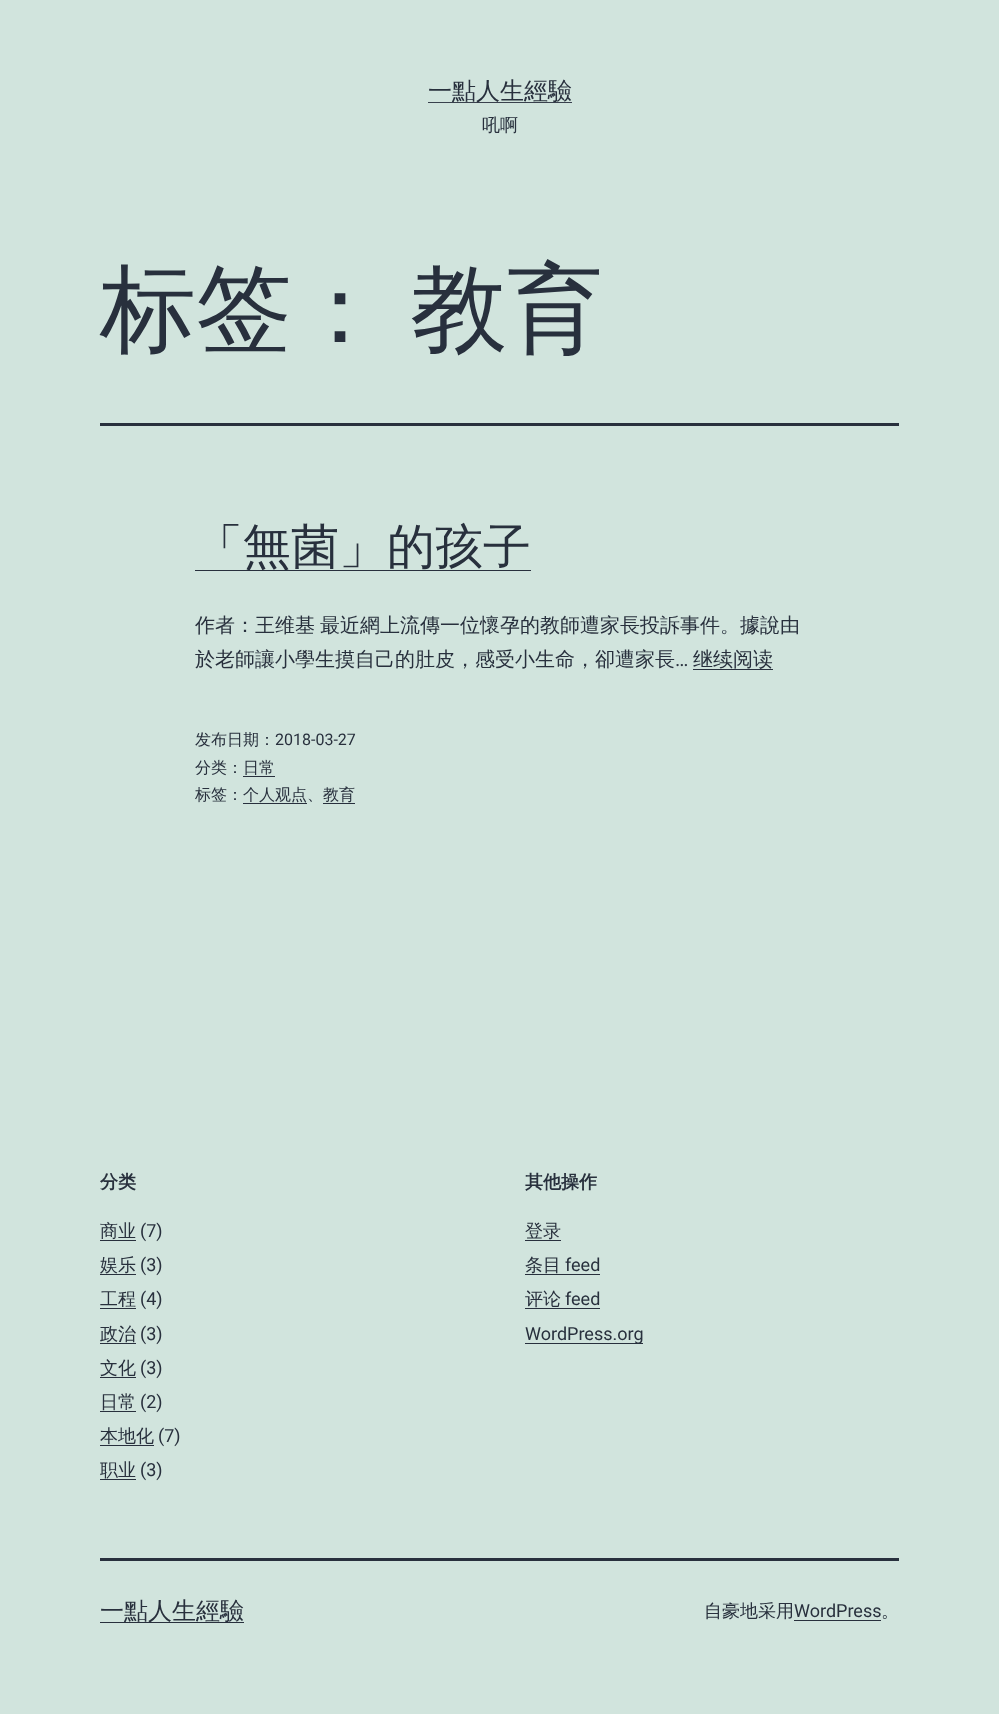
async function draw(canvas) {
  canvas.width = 999;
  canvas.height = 1714;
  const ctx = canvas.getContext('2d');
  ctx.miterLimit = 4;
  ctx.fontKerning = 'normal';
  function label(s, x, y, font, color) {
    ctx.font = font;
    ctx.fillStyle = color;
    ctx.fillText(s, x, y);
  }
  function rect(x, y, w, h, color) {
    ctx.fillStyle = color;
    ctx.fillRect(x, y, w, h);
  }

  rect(0, 0, 999, 1714, '#d1e4dd');
  rect(428, 102, 144, 1, '#39414d');
  label('一點人生經驗', 428, 99, '500 24px WenQuanYi Zen Hei', '#28303d');
  label('吼啊', 482, 131, '500 18px WenQuanYi Zen Hei', '#28303d');
  rect(100, 423, 799, 3, '#28303d');
  label('标签：', 100, 342, '500 96px WenQuanYi Zen Hei', '#28303d');
  label('教育', 411, 342, '500 96px WenQuanYi Zen Hei', '#28303d');
  rect(195, 570, 336, 1, '#28303d');
  label('「無菌」的孩子', 195, 563, '500 48px WenQuanYi Zen Hei', '#28303d');
  ctx.wordSpacing = '-1px';
  label('作者：王维基 最近網上流傳一位懷孕的教師遭家長投訴事件。據說由', 195, 632, '500 20px WenQuanYi Zen Hei', '#28303d');
  ctx.wordSpacing = '0px';
  label('於老師讓小學生摸自己的肚皮，感受小生命，卻遭家長', 195, 666, '500 20px WenQuanYi Zen Hei', '#28303d');
  label('…', 675, 666, '20px Roboto', '#28303d');
  label('继续阅读', 693, 666, '500 20px WenQuanYi Zen Hei', '#28303d');
  rect(693, 669, 80, 1, '#28303d');
  label('发布日期：', 195, 745, '500 16px WenQuanYi Zen Hei', '#28303d');
  label('2018-03-27', 275, 745, '16px Roboto', '#28303d');
  label('分类：日常', 195, 773, '500 16px WenQuanYi Zen Hei', '#28303d');
  rect(243, 776, 32, 1, '#28303d');
  label('标签：个人观点、教育', 195, 800, '500 16px WenQuanYi Zen Hei', '#28303d');
  rect(243, 803, 64, 1, '#28303d');
  rect(323, 803, 32, 1, '#28303d');
  label('分类', 100, 1188, 'bold 18px WenQuanYi Zen Hei', '#28303d');
  label('商业', 100, 1237, '500 18px WenQuanYi Zen Hei', '#28303d');
  rect(100, 1240, 36, 1, '#28303d');
  label('(7)', 140, 1237, '18px Roboto', '#28303d');
  label('娱乐', 100, 1271, '500 18px WenQuanYi Zen Hei', '#28303d');
  rect(100, 1274, 36, 1, '#28303d');
  label('(3)', 140, 1271, '18px Roboto', '#28303d');
  label('工程', 100, 1305, '500 18px WenQuanYi Zen Hei', '#28303d');
  rect(100, 1308, 36, 1, '#28303d');
  label('(4)', 140, 1305, '18px Roboto', '#28303d');
  label('政治', 100, 1340, '500 18px WenQuanYi Zen Hei', '#28303d');
  rect(100, 1343, 36, 1, '#28303d');
  label('(3)', 140, 1340, '18px Roboto', '#28303d');
  label('文化', 100, 1374, '500 18px WenQuanYi Zen Hei', '#28303d');
  rect(100, 1377, 36, 1, '#28303d');
  label('(3)', 140, 1374, '18px Roboto', '#28303d');
  label('日常', 100, 1408, '500 18px WenQuanYi Zen Hei', '#28303d');
  rect(100, 1411, 36, 1, '#28303d');
  label('(2)', 140, 1408, '18px Roboto', '#28303d');
  label('本地化', 100, 1442, '500 18px WenQuanYi Zen Hei', '#28303d');
  rect(100, 1445, 54, 1, '#28303d');
  label('(7)', 158, 1442, '18px Roboto', '#28303d');
  label('职业', 100, 1476, '500 18px WenQuanYi Zen Hei', '#28303d');
  rect(100, 1479, 36, 1, '#28303d');
  label('(3)', 140, 1476, '18px Roboto', '#28303d');
  label('其他操作', 525, 1188, 'bold 18px WenQuanYi Zen Hei', '#28303d');
  label('登录', 525, 1237, '500 18px WenQuanYi Zen Hei', '#28303d');
  rect(525, 1240, 36, 1, '#28303d');
  label('条目', 525, 1271, '500 18px WenQuanYi Zen Hei', '#28303d');
  rect(525, 1274, 75, 1, '#28303d');
  label('feed', 565, 1271, '18px Roboto', '#28303d');
  label('评论', 525, 1305, '500 18px WenQuanYi Zen Hei', '#28303d');
  rect(525, 1308, 75, 1, '#28303d');
  label('feed', 565, 1305, '18px Roboto', '#28303d');
  rect(525, 1343, 118, 1, '#28303d');
  label('WordPress.org', 525, 1340, '18px Roboto', '#28303d');
  rect(100, 1558, 799, 3, '#28303d');
  rect(100, 1622, 144, 1, '#28303d');
  label('一點人生經驗', 100, 1619, '500 24px WenQuanYi Zen Hei', '#28303d');
  label('自豪地采用', 704, 1617, '500 18px WenQuanYi Zen Hei', '#28303d');
  label('WordPress', 794, 1617, '18px Roboto', '#28303d');
  rect(794, 1620, 87, 1, '#28303d');
  label('。', 881, 1617, '500 18px WenQuanYi Zen Hei', '#28303d');
}

draw(document.querySelector('canvas'));
